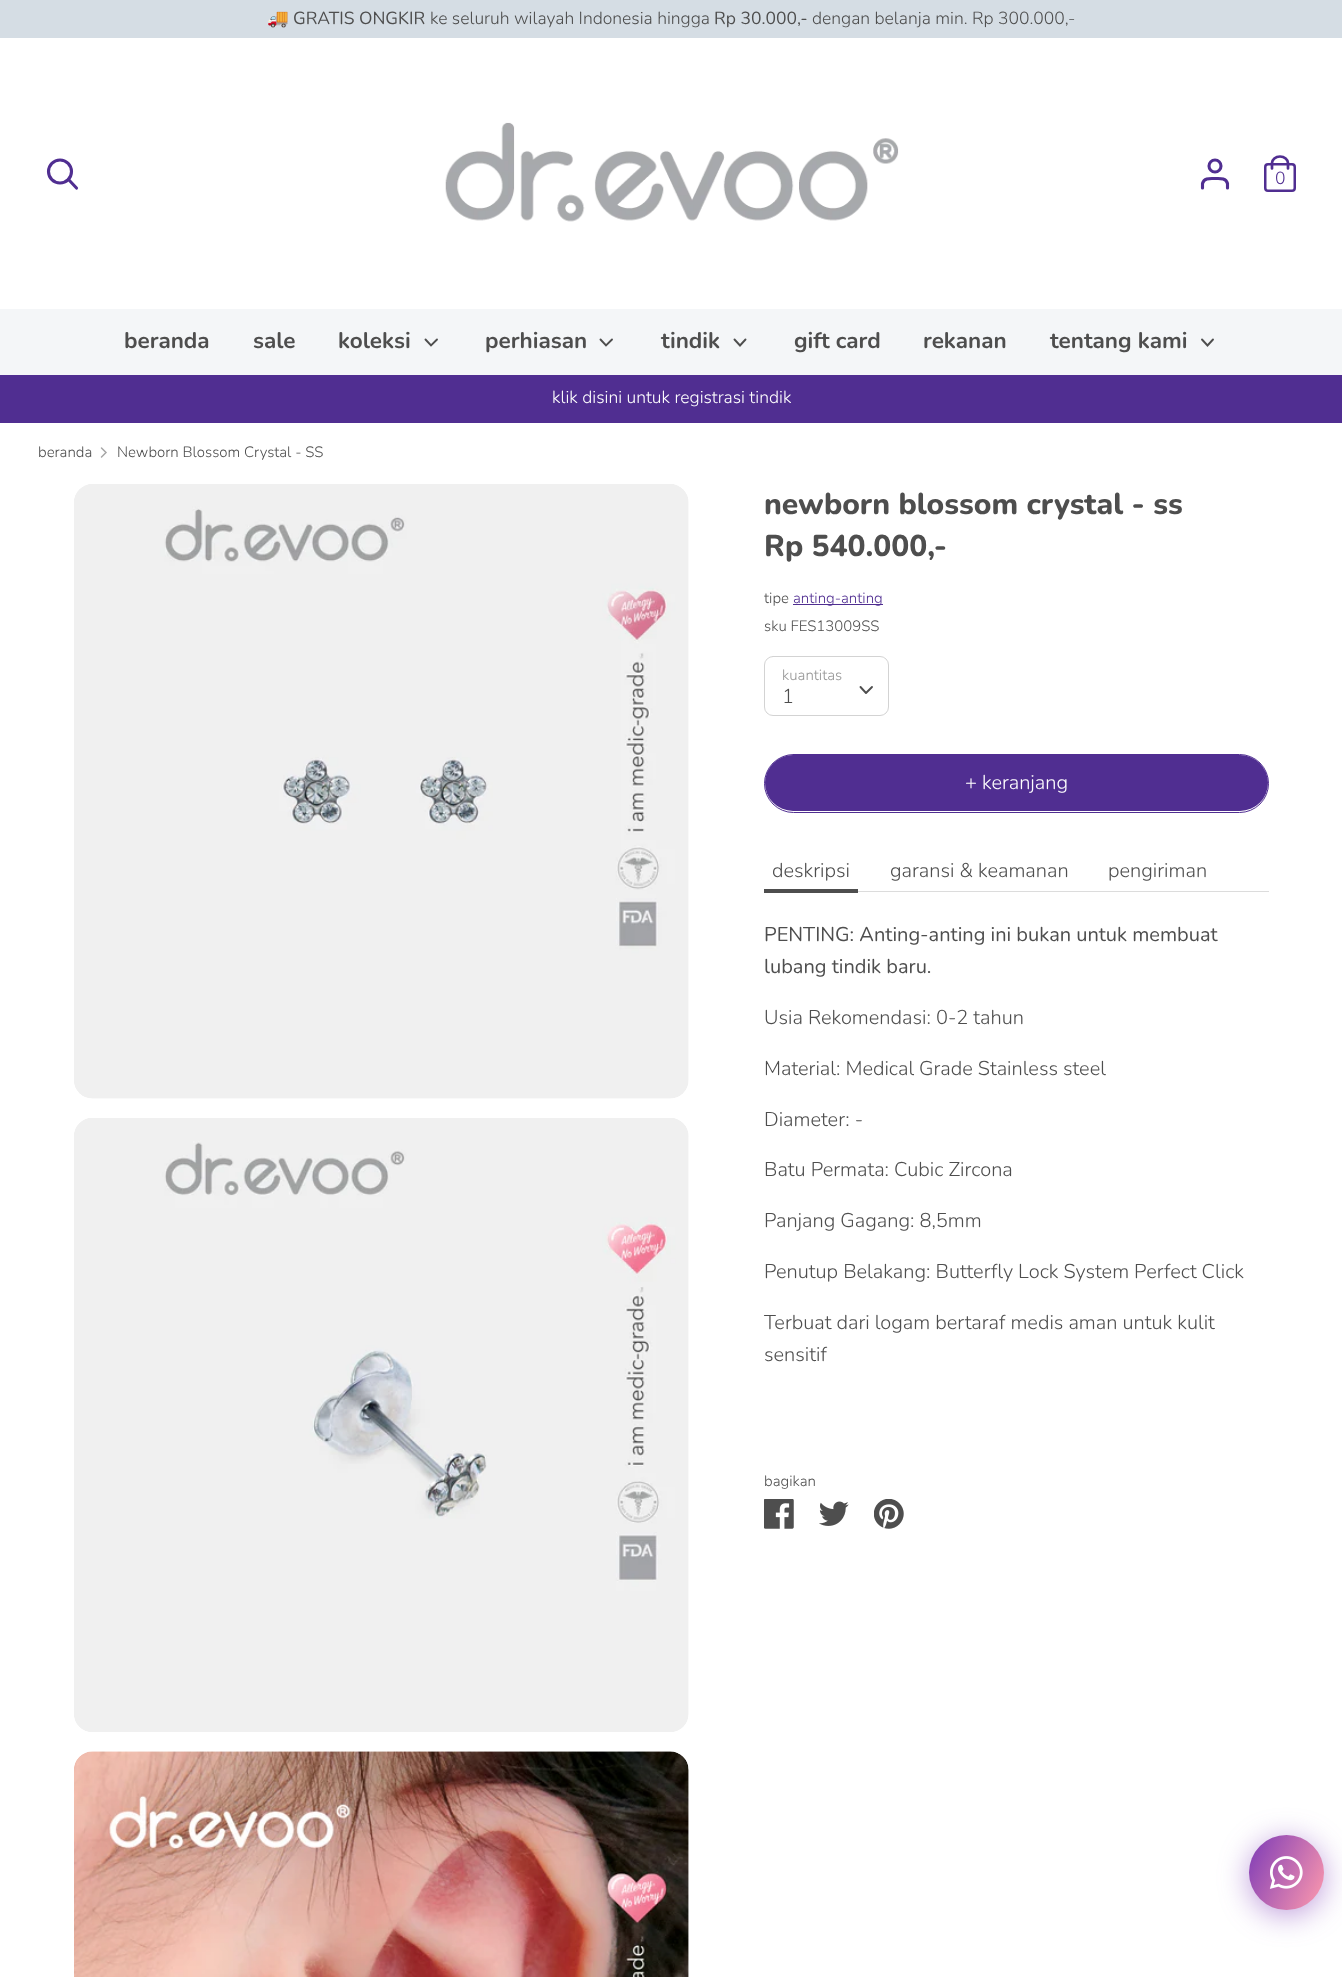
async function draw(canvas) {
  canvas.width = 1342;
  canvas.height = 1977;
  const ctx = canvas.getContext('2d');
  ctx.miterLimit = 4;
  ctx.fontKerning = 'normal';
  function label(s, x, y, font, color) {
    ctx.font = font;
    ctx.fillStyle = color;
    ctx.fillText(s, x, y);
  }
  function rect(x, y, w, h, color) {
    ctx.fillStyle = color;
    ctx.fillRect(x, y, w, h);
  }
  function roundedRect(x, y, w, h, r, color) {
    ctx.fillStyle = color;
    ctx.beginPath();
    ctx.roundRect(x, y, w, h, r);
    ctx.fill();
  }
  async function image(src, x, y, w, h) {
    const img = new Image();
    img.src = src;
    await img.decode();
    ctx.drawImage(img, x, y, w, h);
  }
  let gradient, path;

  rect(0, 0, 1342, 1977, '#fff');
  rect(0, 0, 1342, 38, '#d5dde4');
  label('🚚', 267, 24, '17.5px Noto Color Emoji', '#4e4e4e');
  label('GRATIS ONGKIR', 293, 24, '17.5px Nunito', '#4e4e4e');
  label('ke seluruh wilayah Indonesia hingga', 430, 24, '300 17.5px Nunito', '#4e4e4e');
  label('Rp 30.000,-', 714, 24, '17.5px Nunito', '#4e4e4e');
  label('dengan belanja min. Rp 300.000,-', 812, 24, '300 17.5px Nunito', '#4e4e4e');
  ctx.beginPath();
  ctx.arc(60, 171.5, 11.5, 0, 2 * Math.PI);
  ctx.strokeStyle = '#502e91';
  ctx.lineWidth = 3.1;
  ctx.stroke();
  path = new Path2D('M76.5 188L68.5 179.5');
  ctx.lineCap = 'round';
  ctx.stroke(path);
  await image('assets/img1.png', 445, 122, 454, 100);
  path = new Path2D('M1227.5 188V183.5C1226 177.5 1219.5 178.5 1215 178.5C1210.5 178.5 1204 177.5 1202.5 183.5V188');
  ctx.stroke(path);
  ctx.beginPath();
  ctx.arc(1215, 166, 6, 0, 2 * Math.PI);
  ctx.stroke();
  ctx.beginPath();
  ctx.roundRect(1265.25, 164.25, 29.5, 26.5, 2.75);
  ctx.lineWidth = 2.5;
  ctx.stroke();
  path = new Path2D('M1272 168.5V163C1272 159.5 1275.5 156.5 1280 156.5C1284.5 156.5 1288 159.5 1288 163V168.5');
  ctx.lineWidth = 2.7;
  ctx.stroke(path);
  label('0', 1275, 184, '300 17.5px Nunito', '#502e91');
  rect(0, 309, 1342, 66, '#f4f6f8');
  label('beranda', 124, 348, 'bold 22.5px Nunito', '#4e4e4e');
  label('sale', 253, 348, 'bold 22.5px Nunito', '#4e4e4e');
  label('koleksi', 338, 348, 'bold 22.5px Nunito', '#4e4e4e');
  path = new Path2D('M425.5 339.5L431 345.5L437 339.5');
  ctx.strokeStyle = '#4e4e4e';
  ctx.lineWidth = 1.9;
  ctx.stroke(path);
  label('perhiasan', 485, 348, 'bold 22.5px Nunito', '#4e4e4e');
  path = new Path2D('M600.5 339.5L606 345.5L612 339.5');
  ctx.stroke(path);
  label('tindik', 661, 348, 'bold 22.5px Nunito', '#4e4e4e');
  path = new Path2D('M734.5 339.5L740 345.5L745.5 339.5');
  ctx.stroke(path);
  label('gift card', 794, 348, 'bold 22.5px Nunito', '#4e4e4e');
  label('rekanan', 923, 348, 'bold 22.5px Nunito', '#4e4e4e');
  label('tentang kami', 1050, 348, 'bold 22.5px Nunito', '#4e4e4e');
  path = new Path2D('M1202 339.5L1207.5 345.5L1213 339.5');
  ctx.stroke(path);
  rect(0, 375, 1342, 48, '#502e91');
  label('klik disini untuk registrasi tindik', 552, 403, '300 17.5px Nunito', '#fff');
  label('beranda', 38, 457, '300 15px Nunito', '#4e4e4e');
  path = new Path2D('M101.5 457L106 452.5L101.5 448');
  ctx.strokeStyle = '#a7a7a7';
  ctx.lineWidth = 1.5;
  ctx.stroke(path);
  label('Newborn Blossom Crystal - SS', 117, 457, '300 15px Nunito', '#4e4e4e');
  await image('assets/img2.png', 74, 484, 615, 615);
  await image('assets/img3.png', 74, 1118, 615, 614);
  await image('assets/img4.png', 74, 1751, 615, 226);
  label('newborn blossom crystal - ss', 764, 514, '800 30px Nunito', '#4e4e4e');
  label('Rp 540.000,-', 764, 556, '800 30px Nunito', '#4e4e4e');
  label('tipe', 764, 603, '300 15px Nunito', '#4e4e4e');
  rect(793, 604, 90, 1, '#502e91');
  label('anting-anting', 793, 603, '300 15px Nunito', '#502e91');
  label('sku FES13009SS', 764, 631, '300 15px Nunito', '#4e4e4e');
  ctx.beginPath();
  ctx.roundRect(764.5, 656.5, 124, 59, 8.5);
  ctx.strokeStyle = '#d3d3d3';
  ctx.lineWidth = 1;
  ctx.stroke();
  label('kuantitas', 782, 680, '300 15px Nunito', '#959595');
  label('1', 782, 703, '300 20px Nunito', '#4e4e4e');
  path = new Path2D('M860.5 687L866 693L872 687');
  ctx.strokeStyle = '#4e4e4e';
  ctx.lineWidth = 1.9;
  ctx.lineJoin = 'round';
  ctx.stroke(path);
  ctx.beginPath();
  ctx.roundRect(764.5, 754.5, 504, 58, 29);
  ctx.strokeStyle = '#502e91';
  ctx.lineWidth = 1;
  ctx.lineJoin = 'miter';
  ctx.stroke();
  roundedRect(765, 755, 503, 56, 28, '#502e91');
  label('+ keranjang', 965, 789, '300 20px Nunito', '#fff');
  rect(858, 891, 411, 1, '#dcdcdc');
  label('deskripsi', 772, 877, '300 20px Nunito', '#4e4e4e');
  rect(764, 889, 94, 4, '#4e4e4e');
  label('garansi & keamanan', 890, 877, '300 20px Nunito', '#4e4e4e');
  label('pengiriman', 1108, 877, '300 20px Nunito', '#4e4e4e');
  label('PENTING: Anting-anting ini bukan untuk membuat', 764, 941, '20px Nunito', '#4e4e4e');
  label('lubang tindik baru.', 764, 973, '20px Nunito', '#4e4e4e');
  label('Usia Rekomendasi: 0-2 tahun', 764, 1024, '300 20px Nunito', '#4e4e4e');
  label('Material: Medical Grade Stainless steel', 764, 1075, '300 20px Nunito', '#4e4e4e');
  label('Diameter: -', 764, 1126, '300 20px Nunito', '#4e4e4e');
  label('Batu Permata: Cubic Zircona', 764, 1176, '300 20px Nunito', '#4e4e4e');
  label('Panjang Gagang: 8,5mm', 764, 1227, '300 20px Nunito', '#4e4e4e');
  label('Penutup Belakang: Butterfly Lock System Perfect Click', 764, 1278, '300 20px Nunito', '#4e4e4e');
  label('Terbuat dari logam bertaraf medis aman untuk kulit', 764, 1329, '300 20px Nunito', '#4e4e4e');
  label('sensitif', 764, 1361, '300 20px Nunito', '#4e4e4e');
  label('bagikan', 764, 1486, '300 15px Nunito', '#4e4e4e');
  await image('assets/img5.png', 764, 1499, 30, 30);
  await image('assets/img6.png', 819, 1501, 30, 25);
  await image('assets/img7.png', 874, 1499, 30, 30);
  ctx.fillStyle = '#7c3ab780';
  ctx.filter = 'blur(15px)';
  ctx.beginPath();
  ctx.roundRect(1249, 1840, 75, 75, 37.5);
  ctx.fill();
  ctx.filter = 'none';
  gradient = ctx.createLinearGradient(1241, 1851, 1331, 1894);
  gradient.addColorStop(0, '#7c3ab7');
  gradient.addColorStop(1, '#ff9aad');
  ctx.fillStyle = gradient;
  ctx.beginPath();
  ctx.arc(1286.5, 1872.5, 37.5, 0, 2 * Math.PI);
  ctx.fill();
  await image('assets/img8.png', 1269, 1856, 34, 33);
}

draw(document.querySelector('canvas'));
